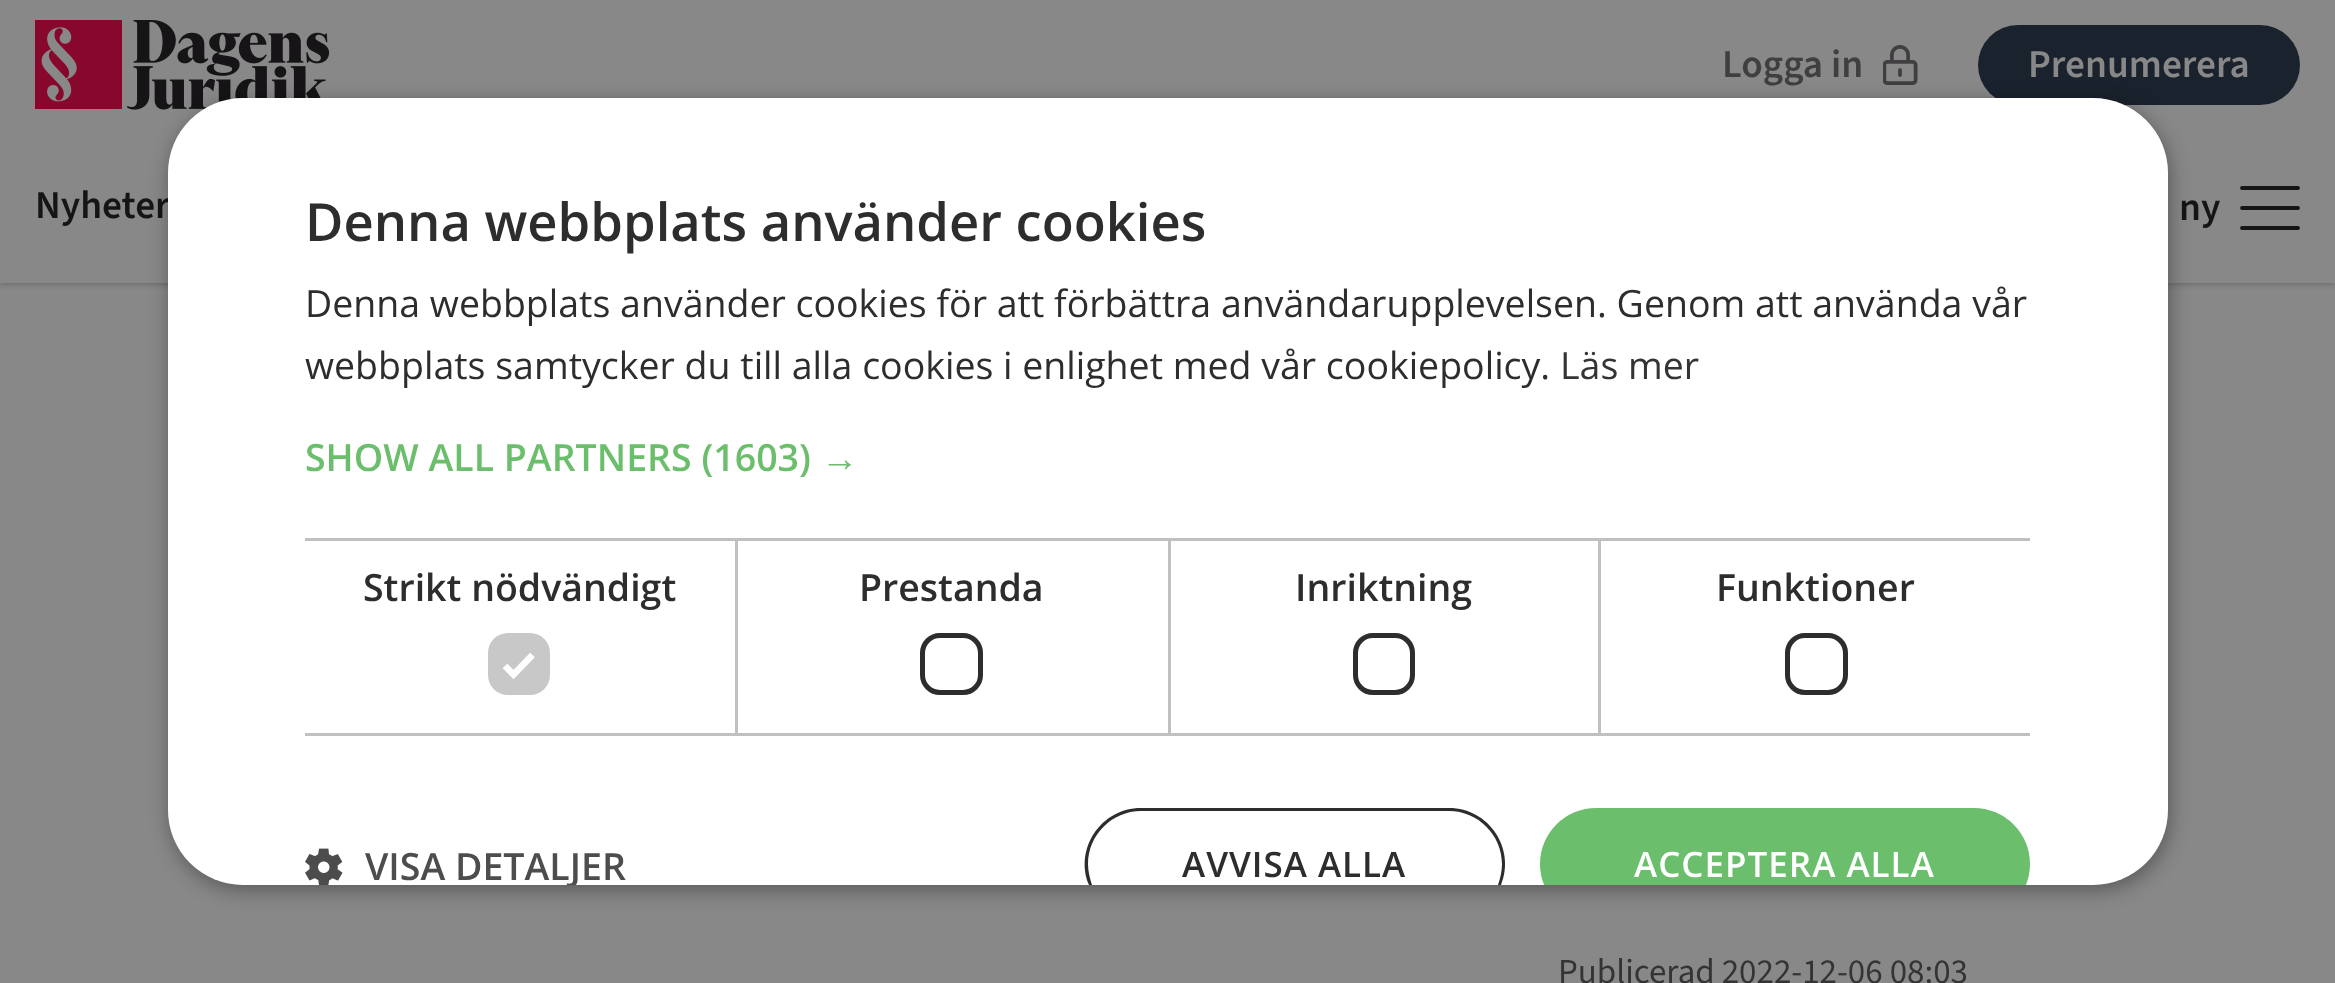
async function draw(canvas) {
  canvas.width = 2335;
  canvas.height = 983;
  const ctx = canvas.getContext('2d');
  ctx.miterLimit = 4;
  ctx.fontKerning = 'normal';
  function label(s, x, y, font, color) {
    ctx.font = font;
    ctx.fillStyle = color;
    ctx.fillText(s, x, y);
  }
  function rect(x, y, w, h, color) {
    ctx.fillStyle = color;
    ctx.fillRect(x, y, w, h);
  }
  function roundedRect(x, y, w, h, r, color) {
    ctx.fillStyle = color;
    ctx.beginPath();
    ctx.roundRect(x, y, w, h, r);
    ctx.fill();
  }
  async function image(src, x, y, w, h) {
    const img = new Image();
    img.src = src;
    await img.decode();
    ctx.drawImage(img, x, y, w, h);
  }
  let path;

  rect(0, 0, 2335, 983, '#888');
  ctx.fillStyle = '#09090933';
  ctx.filter = 'blur(2.5px)';
  ctx.beginPath();
  ctx.rect(0, 3, 2335, 282);
  ctx.fill();
  ctx.filter = 'none';
  rect(0, 0, 2335, 283, '#888');
  await image('assets/img1.png', 35, 20, 295, 90);
  label('Logga in', 1722, 77, '200 39.25px "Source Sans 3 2"', '#403f40');
  await image('assets/img2.png', 1883, 45, 35, 40);
  roundedRect(1978, 25, 322, 80, 40, '#1a222d');
  label('Prenumerera', 2028, 77, '200 39.25px "Source Sans 3 2"', '#888');
  label('Nyheter', 35, 218, '200 39.25px "Source Sans 3 2"', '#161516');
  label('ny', 2179, 220, '200 39.25px "Source Sans 3 2"', '#161516');
  path = new Path2D('M2242 188H2298M2242 208H2298M2242 228H2298');
  ctx.strokeStyle = '#161516';
  ctx.lineWidth = 3.8;
  ctx.lineCap = 'round';
  ctx.stroke(path);
  label('Publicerad 2022-12-06 08:03', 1558, 983, '200 35px "Source Sans 3"', '#353435');
  ctx.fillStyle = '#00000059';
  ctx.filter = 'blur(10px)';
  ctx.beginPath();
  ctx.roundRect(170, 103, 2000, 787, 75);
  ctx.fill();
  ctx.filter = 'none';
  roundedRect(168, 98, 2000, 787, 75, '#fff');
  label('Denna webbplats använder cookies', 305, 241, '600 52.5px Open Sans', '#2d2d2d');
  label('Denna webbplats använder cookies för att förbättra användarupplevelsen. Genom att använda vår', 305, 317, '37.5px Open Sans', '#2d2d2d');
  label('webbplats samtycker du till alla cookies i enlighet med vår cookiepolicy.', 305, 379, '37.5px Open Sans', '#2d2d2d');
  label('Läs mer', 1560, 379, '37.5px Open Sans', '#353435');
  label('SHOW ALL PARTNERS (1603)', 305, 471, '600 37.5px Open Sans', '#6bbe6b');
  label('→', 821, 471, 'bold 37.5px Liberation Sans', '#6bbe6b');
  rect(305, 538, 865, 3, '#c0c0c0');
  rect(735, 538, 3, 197, '#c0c0c0');
  rect(305, 733, 433, 3, '#c0c0c0');
  label('Strikt nödvändigt', 363, 601, '600 37.5px Open Sans', '#2d2d2d');
  roundedRect(488, 633, 62, 62, 20, '#c8c8c8');
  path = new Path2D('M505 666L513.5 674.5L532.5 655');
  ctx.strokeStyle = '#fff';
  ctx.lineWidth = 6.6;
  ctx.lineCap = 'butt';
  ctx.stroke(path);
  rect(1168, 538, 3, 197, '#c0c0c0');
  rect(738, 733, 432, 3, '#c0c0c0');
  label('Prestanda', 859, 601, '600 37.5px Open Sans', '#2d2d2d');
  ctx.beginPath();
  ctx.roundRect(922.5, 635.5, 58, 57, 17.5);
  ctx.strokeStyle = '#2d2d2d';
  ctx.lineWidth = 5;
  ctx.stroke();
  rect(1170, 538, 430, 3, '#c0c0c0');
  rect(1598, 538, 3, 197, '#c0c0c0');
  rect(1170, 733, 860, 3, '#c0c0c0');
  label('Inriktning', 1295, 601, '600 37.5px Open Sans', '#2d2d2d');
  ctx.beginPath();
  ctx.roundRect(1355.5, 635.5, 57, 57, 17.5);
  ctx.stroke();
  rect(1600, 538, 430, 3, '#c0c0c0');
  label('Funktioner', 1716, 601, '600 37.5px Open Sans', '#2d2d2d');
  ctx.beginPath();
  ctx.roundRect(1787.5, 635.5, 58, 57, 17.5);
  ctx.stroke();
  await image('assets/img3.png', 305, 848, 38, 37);
  ctx.save();
  ctx.beginPath();
  ctx.roundRect(168, 98, 2000, 787, 75);
  ctx.clip();
  label('VISA DETALJER', 365, 880, '600 37.5px Open Sans', '#4d4d4d');
  ctx.restore();
  path = new Path2D('M1141 808C1101 808 1074 849 1089 885H1092C1090 879 1088 871 1088 864C1088 835 1112 811 1141 811H1449C1478 811 1502 835 1502 864C1502 871 1500 879 1498 885H1501C1516 849 1489 808 1449 808Z');
  ctx.fill(path);
  ctx.letterSpacing = '1px';
  label('AVVISA ALLA', 1182, 877, '600 35px Open Sans', '#2d2d2d');
  ctx.save();
  ctx.beginPath();
  ctx.roundRect(168, 98, 2000, 787, 75);
  ctx.clip();
  roundedRect(1540, 808, 490, 112, 56, '#6bbe6b');
  ctx.restore();
  label('ACCEPTERA ALLA', 1634, 877, '600 35px Open Sans', '#fff');
}

draw(document.querySelector('canvas'));
